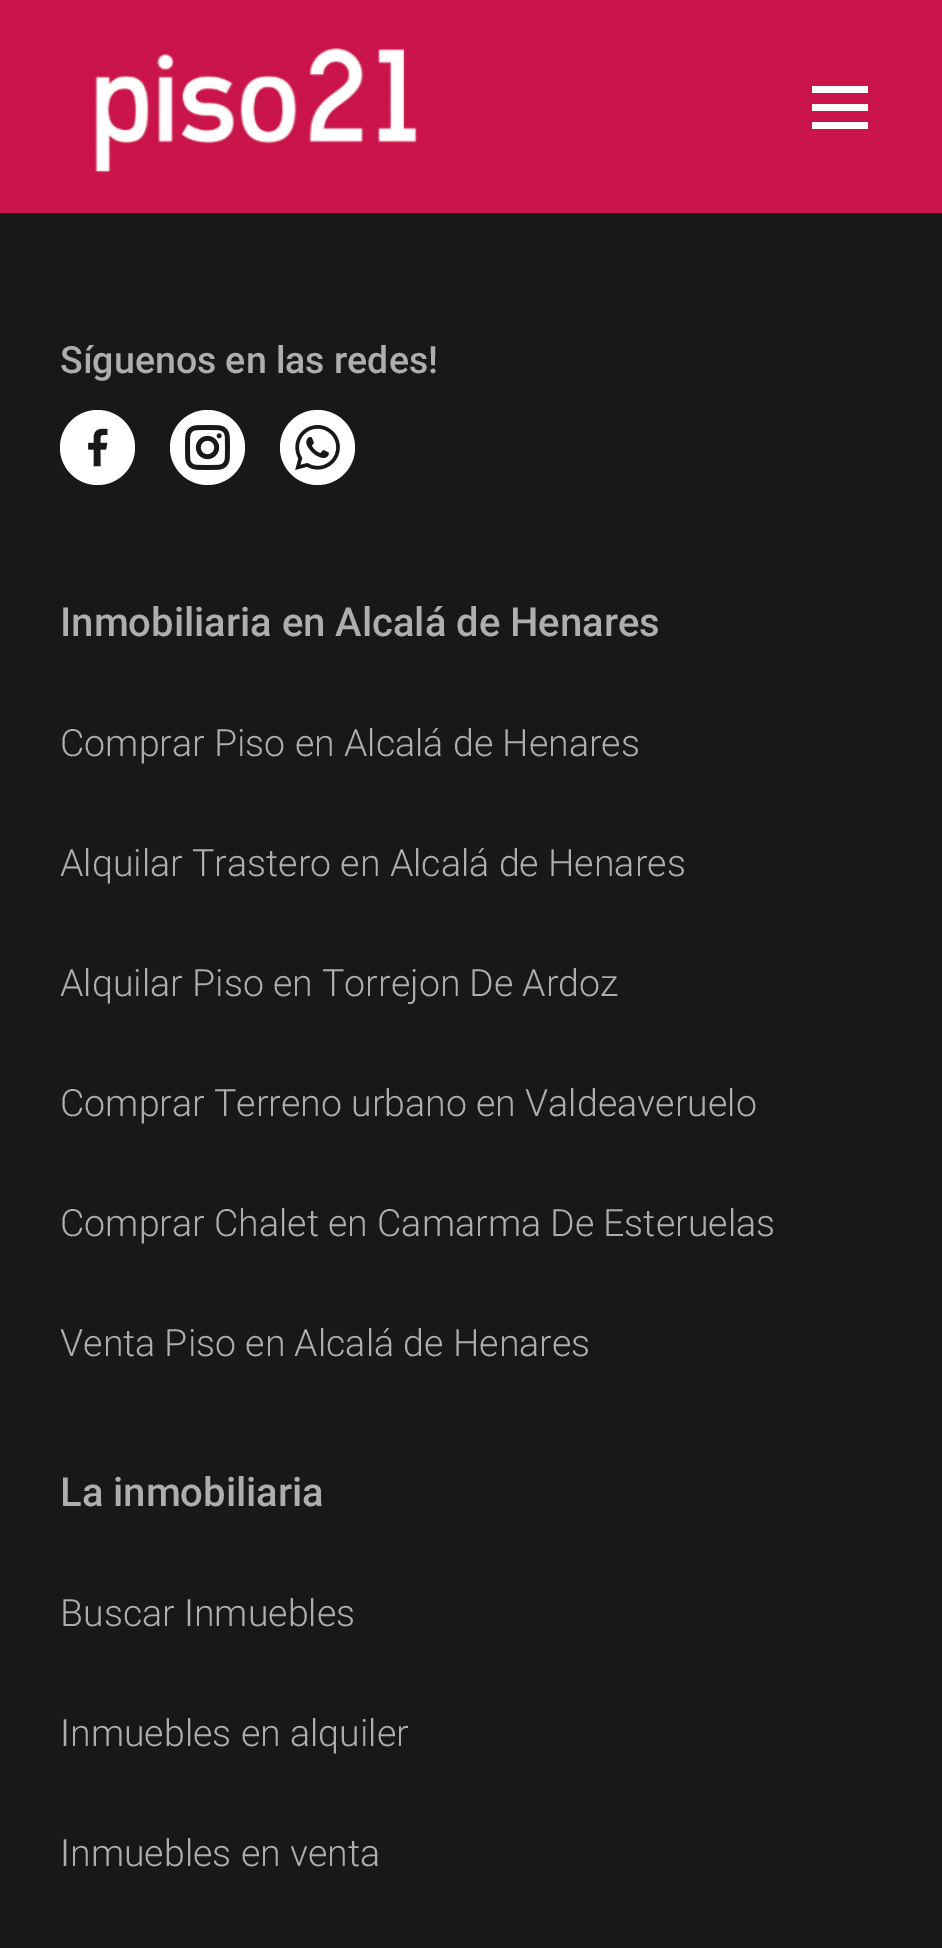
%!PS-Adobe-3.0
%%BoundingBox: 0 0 942 1948
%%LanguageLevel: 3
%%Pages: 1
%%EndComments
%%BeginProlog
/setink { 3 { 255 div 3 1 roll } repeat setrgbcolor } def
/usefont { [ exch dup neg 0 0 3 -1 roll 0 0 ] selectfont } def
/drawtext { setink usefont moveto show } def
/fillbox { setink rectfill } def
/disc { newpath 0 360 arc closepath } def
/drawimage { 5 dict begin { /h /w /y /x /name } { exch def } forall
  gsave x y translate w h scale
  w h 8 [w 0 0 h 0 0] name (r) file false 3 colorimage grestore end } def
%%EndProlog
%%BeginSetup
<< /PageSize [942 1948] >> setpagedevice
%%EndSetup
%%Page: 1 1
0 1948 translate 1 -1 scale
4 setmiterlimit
0 0 942 1948 24 24 24 fillbox
0 0 942 213 203 19 76 fillbox
(assets/img1.rgb) 95 47 322 126 drawimage
255 255 255 setink
812 86 moveto 868 86 lineto 868 93 lineto 812 93 lineto closepath 812 104 moveto 868 104 lineto 868 111 lineto 812 111 lineto closepath 812 122 moveto 868 122 lineto 868 129 lineto 812 129 lineto closepath fill
(Síguenos en las redes!) 60 373 /Roboto-Medium 37.5 174 174 174 drawtext
255 255 255 setink
97.5 447.5 37.5 disc fill
(assets/img2.rgb) 88 428 20 39 drawimage
207.5 447.5 37.5 disc fill
(assets/img3.rgb) 185 425 45 45 drawimage
317.5 447.5 37.5 disc fill
(assets/img4.rgb) 295 425 45 45 drawimage
(Inmobiliaria en Alcalá de Henares) 60 636 /Roboto-Medium 40 174 174 174 drawtext
(Comprar Piso en Alcalá de Henares) 60 756 /Roboto-Light 37.5 174 174 174 drawtext
(Alquilar Trastero en Alcalá de Henares) 60 876 /Roboto-Light 37.5 174 174 174 drawtext
(Alquilar Piso en Torrejon De Ardoz) 60 996 /Roboto-Light 37.5 174 174 174 drawtext
(Comprar Terreno urbano en Valdeaveruelo) 60 1116 /Roboto-Light 37.5 174 174 174 drawtext
(Comprar Chalet en Camarma De Esteruelas) 60 1236 /Roboto-Light 37.5 174 174 174 drawtext
(Venta Piso en Alcalá de Henares) 60 1356 /Roboto-Light 37.5 174 174 174 drawtext
(La inmobiliaria) 60 1506 /Roboto-Medium 40 174 174 174 drawtext
(Buscar Inmuebles) 60 1626 /Roboto-Light 37.5 174 174 174 drawtext
(Inmuebles en alquiler) 60 1746 /Roboto-Light 37.5 174 174 174 drawtext
(Inmuebles en venta) 60 1866 /Roboto-Light 37.5 174 174 174 drawtext
showpage
%%EOF
